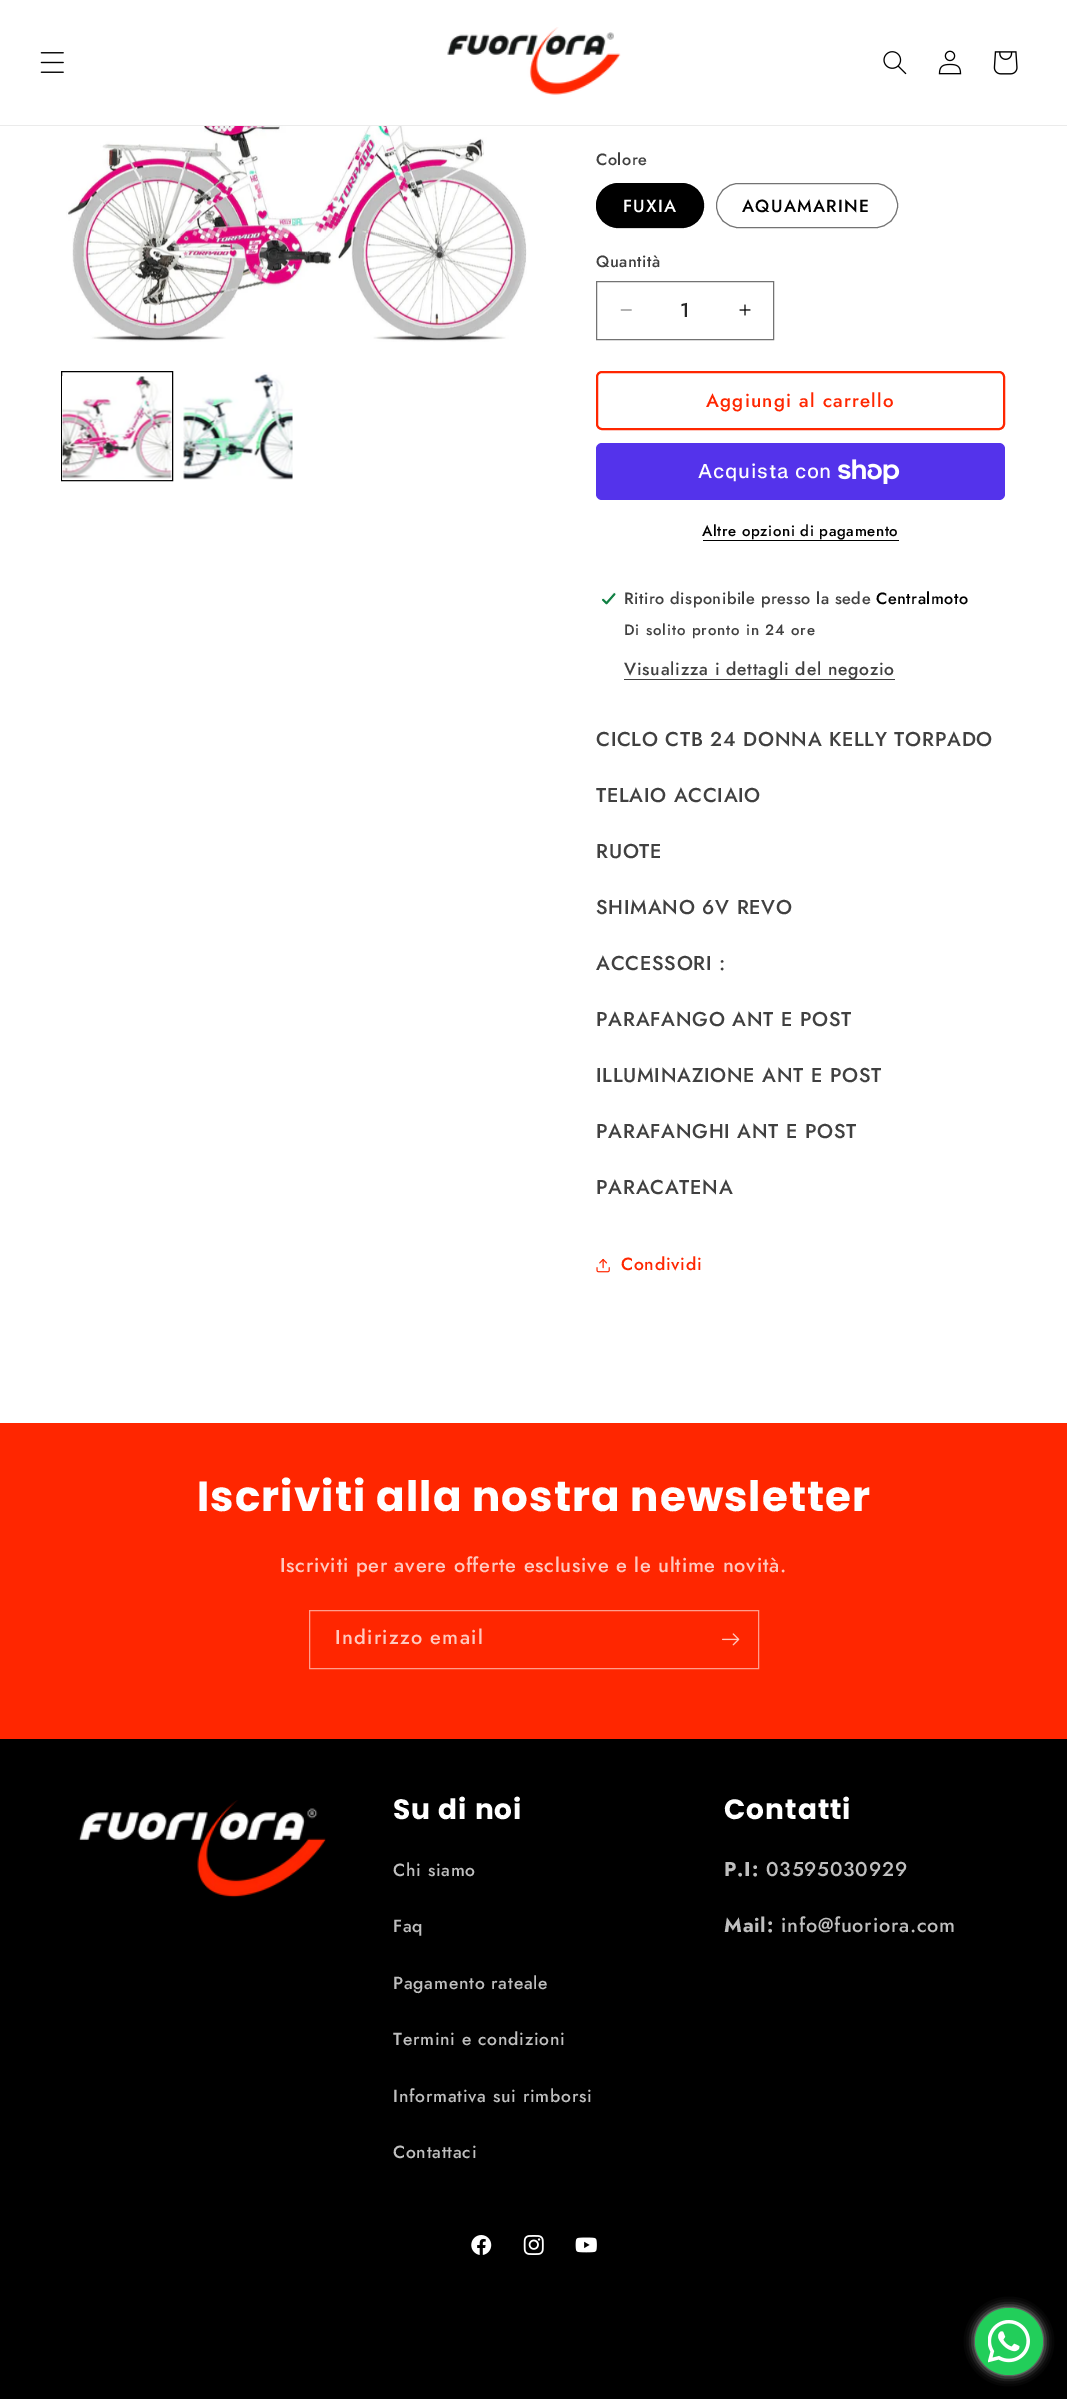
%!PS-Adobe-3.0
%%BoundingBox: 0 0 1067 2399
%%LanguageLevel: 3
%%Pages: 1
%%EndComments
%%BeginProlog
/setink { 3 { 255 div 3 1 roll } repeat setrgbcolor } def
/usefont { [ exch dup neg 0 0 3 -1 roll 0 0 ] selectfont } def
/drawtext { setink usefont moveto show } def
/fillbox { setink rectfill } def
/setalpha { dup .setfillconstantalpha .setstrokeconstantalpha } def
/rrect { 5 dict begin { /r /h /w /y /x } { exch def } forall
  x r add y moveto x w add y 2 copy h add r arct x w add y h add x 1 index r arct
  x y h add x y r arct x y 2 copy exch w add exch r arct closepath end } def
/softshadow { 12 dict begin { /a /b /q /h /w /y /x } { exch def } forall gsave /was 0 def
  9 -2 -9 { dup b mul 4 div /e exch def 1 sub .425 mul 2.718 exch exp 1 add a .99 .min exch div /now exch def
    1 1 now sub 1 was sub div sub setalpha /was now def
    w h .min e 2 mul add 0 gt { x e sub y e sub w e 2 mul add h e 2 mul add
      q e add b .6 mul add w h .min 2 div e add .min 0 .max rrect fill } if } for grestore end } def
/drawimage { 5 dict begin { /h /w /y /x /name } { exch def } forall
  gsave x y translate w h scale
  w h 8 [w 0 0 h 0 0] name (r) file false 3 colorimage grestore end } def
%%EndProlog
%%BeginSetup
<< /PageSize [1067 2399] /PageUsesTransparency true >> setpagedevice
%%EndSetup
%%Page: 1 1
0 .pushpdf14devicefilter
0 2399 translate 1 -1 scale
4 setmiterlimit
0 0 1067 2399 255 255 255 fillbox
0 125 1067 1 235 235 235 fillbox
(assets/img1.rgb) 40 52 24 21 drawimage
(assets/img2.rgb) 447 27 174 68 drawimage
(assets/img3.rgb) 883 51 24 24 drawimage
(assets/img4.rgb) 938 50 24 25 drawimage
(assets/img5.rgb) 993 51 25 24 drawimage
(assets/img6.rgb) 66 126 461 216 drawimage
0 0 0 setink
61.5 371.5 111 109 rectstroke
(assets/img7.rgb) 62 376 110 105 drawimage
(assets/img8.rgb) 183 372 110 108 drawimage
/Jost-Medium 16.25 usefont
64 64 64 setink
596 165 moveto 0.5 0 (Colore) ashow
0 0 0 setink
596 183 108 45 22.5 rrect fill
0.55 setalpha
596.5 183.5 107 44 22 rrect stroke
/Jost-Medium 17.5 usefont
1 setalpha
255 255 255 setink
623 212 moveto 1.25 0 (FUXIA) ashow
115 115 115 setink
716.5 183.5 181 44 22 rrect stroke
0 0 0 setink
742 212 moveto 1.25 0 (AQUAMARINE) ashow
/Jost-Medium 16.25 usefont
64 64 64 setink
596 267 moveto 0.5 0 (Quantità) ashow
(assets/img9.rgb) 620 309 12 2 drawimage
(assets/img10.rgb) 739 304 12 12 drawimage
115 115 115 setink
596.5 281.5 177 58 rectstroke
(1) 680 317 /Jost-Medium 20 38 38 38 drawtext
255 38 0 setink
2 setlinewidth
597 372 407 57 5 rrect stroke
/Jost-Medium 18.75 usefont
706 407 moveto 1.25 0 (Aggiungi al carrello) ashow
84 51 235 setink
596 443 409 57 6 rrect fill
/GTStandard-Medium 20 usefont
255 255 255 setink
698 478 moveto 0.75 0 (Acquista con) ashow
(assets/img11.rgb) 838 459 62 25 drawimage
/Jost-Medium 15 usefont
0 0 0 setink
702 536 moveto 0.6 0 (Altre opzioni di pagamento) ashow
703 540 196 1 0 0 0 fillbox
(assets/img12.rgb) 601 592 15 13 drawimage
/Jost-Medium 16.25 usefont
64 64 64 setink
624 604 moveto 0.5 0 (Ritiro disponibile presso la sede) ashow
0 0 0 setink
876 604 moveto 0.5 0 (Centralmoto) ashow
/Jost-Medium 15 usefont
64 64 64 setink
624 635 moveto 0.9 0 (Di solito pronto in 24 ore) ashow
624 679 271 1 64 64 64 fillbox
/Jost-Medium 17.5 usefont
624 675 moveto 0.75 0 (Visualizza i dettagli del negozio) ashow
/Jost-Medium 20 usefont
596 746 moveto 0.75 0 (CICLO CTB 24 DONNA KELLY TORPADO) ashow
596 802 moveto 0.75 0 (TELAIO ACCIAIO) ashow
596 858 moveto 0.75 0 (RUOTE) ashow
596 914 moveto 0.75 0 (SHIMANO 6V REVO) ashow
596 970 moveto 0.75 0 (ACCESSORI :) ashow
596 1026 moveto 0.75 0 (PARAFANGO ANT E POST) ashow
596 1082 moveto 0.75 0 (ILLUMINAZIONE ANT E POST) ashow
596 1138 moveto 0.75 0 (PARAFANGHI ANT E POST) ashow
596 1194 moveto 0.75 0 (PARACATENA) ashow
(assets/img13.rgb) 596 1258 14 15 drawimage
/Jost-Medium 17.5 usefont
255 38 0 setink
621 1270 moveto 0.75 0 (Condividi) ashow
0 1423 1067 316 255 38 0 fillbox
/Poppins-Bold 42 usefont
255 255 255 setink
197 1511 moveto 1.05 0 (Iscriviti alla nostra newsletter) ashow
/Jost-Medium 20 usefont
255 201 191 setink
280 1572 moveto 0.75 0 (Iscriviti per avere offerte esclusive e le ultime novità.) ashow
255 157 140 setink
1 setlinewidth
309.5 1610.5 449 58 rectstroke
255 201 191 setink
335 1644 moveto 1.25 0 (Indirizzo email) ashow
(assets/img14.rgb) 722 1633 18 13 drawimage
0 1739 1067 660 0 0 0 fillbox
(assets/img15.rgb) 78 1800 248 98 drawimage
/Poppins-Bold 28 usefont
255 255 255 setink
393 1819 moveto 1.05 0 (Su di noi) ashow
/Jost-Medium 17.5 usefont
191 191 191 setink
393 1876 moveto 0.75 0 (Chi siamo) ashow
393 1932 moveto 0.75 0 (Faq) ashow
393 1989 moveto 0.75 0 (Pagamento rateale) ashow
393 2045 moveto 0.75 0 (Termini e condizioni) ashow
393 2102 moveto 0.75 0 (Informativa sui rimborsi) ashow
393 2158 moveto 0.75 0 (Contattaci) ashow
/Poppins-Bold 28 usefont
255 255 255 setink
724 1819 moveto 1.05 0 (Contatti) ashow
/Jost-Bold 20 usefont
191 191 191 setink
724 1876 moveto 0.75 0 (P.I:) ashow
/Jost-Medium 20 usefont
766 1876 moveto 0.75 0 (03595030929) ashow
/Jost-Bold 20 usefont
724 1932 moveto 0.75 0 (Mail:) ashow
/Jost-Medium 20 usefont
781 1932 moveto 0.75 0 (info@fuoriora.com) ashow
(assets/img16.rgb) 471 2235 21 20 drawimage
(assets/img17.rgb) 523 2235 21 20 drawimage
(assets/img18.rgb) 575 2237 22 16 drawimage
194 194 194 setink
975 2308 68 67 33.5 5 1 softshadow
34 206 90 setink
975 2308 68 67 33.5 rrect fill
(assets/img19.rgb) 988 2320 42 43 drawimage
.poppdf14devicefilter showpage
%%EOF
